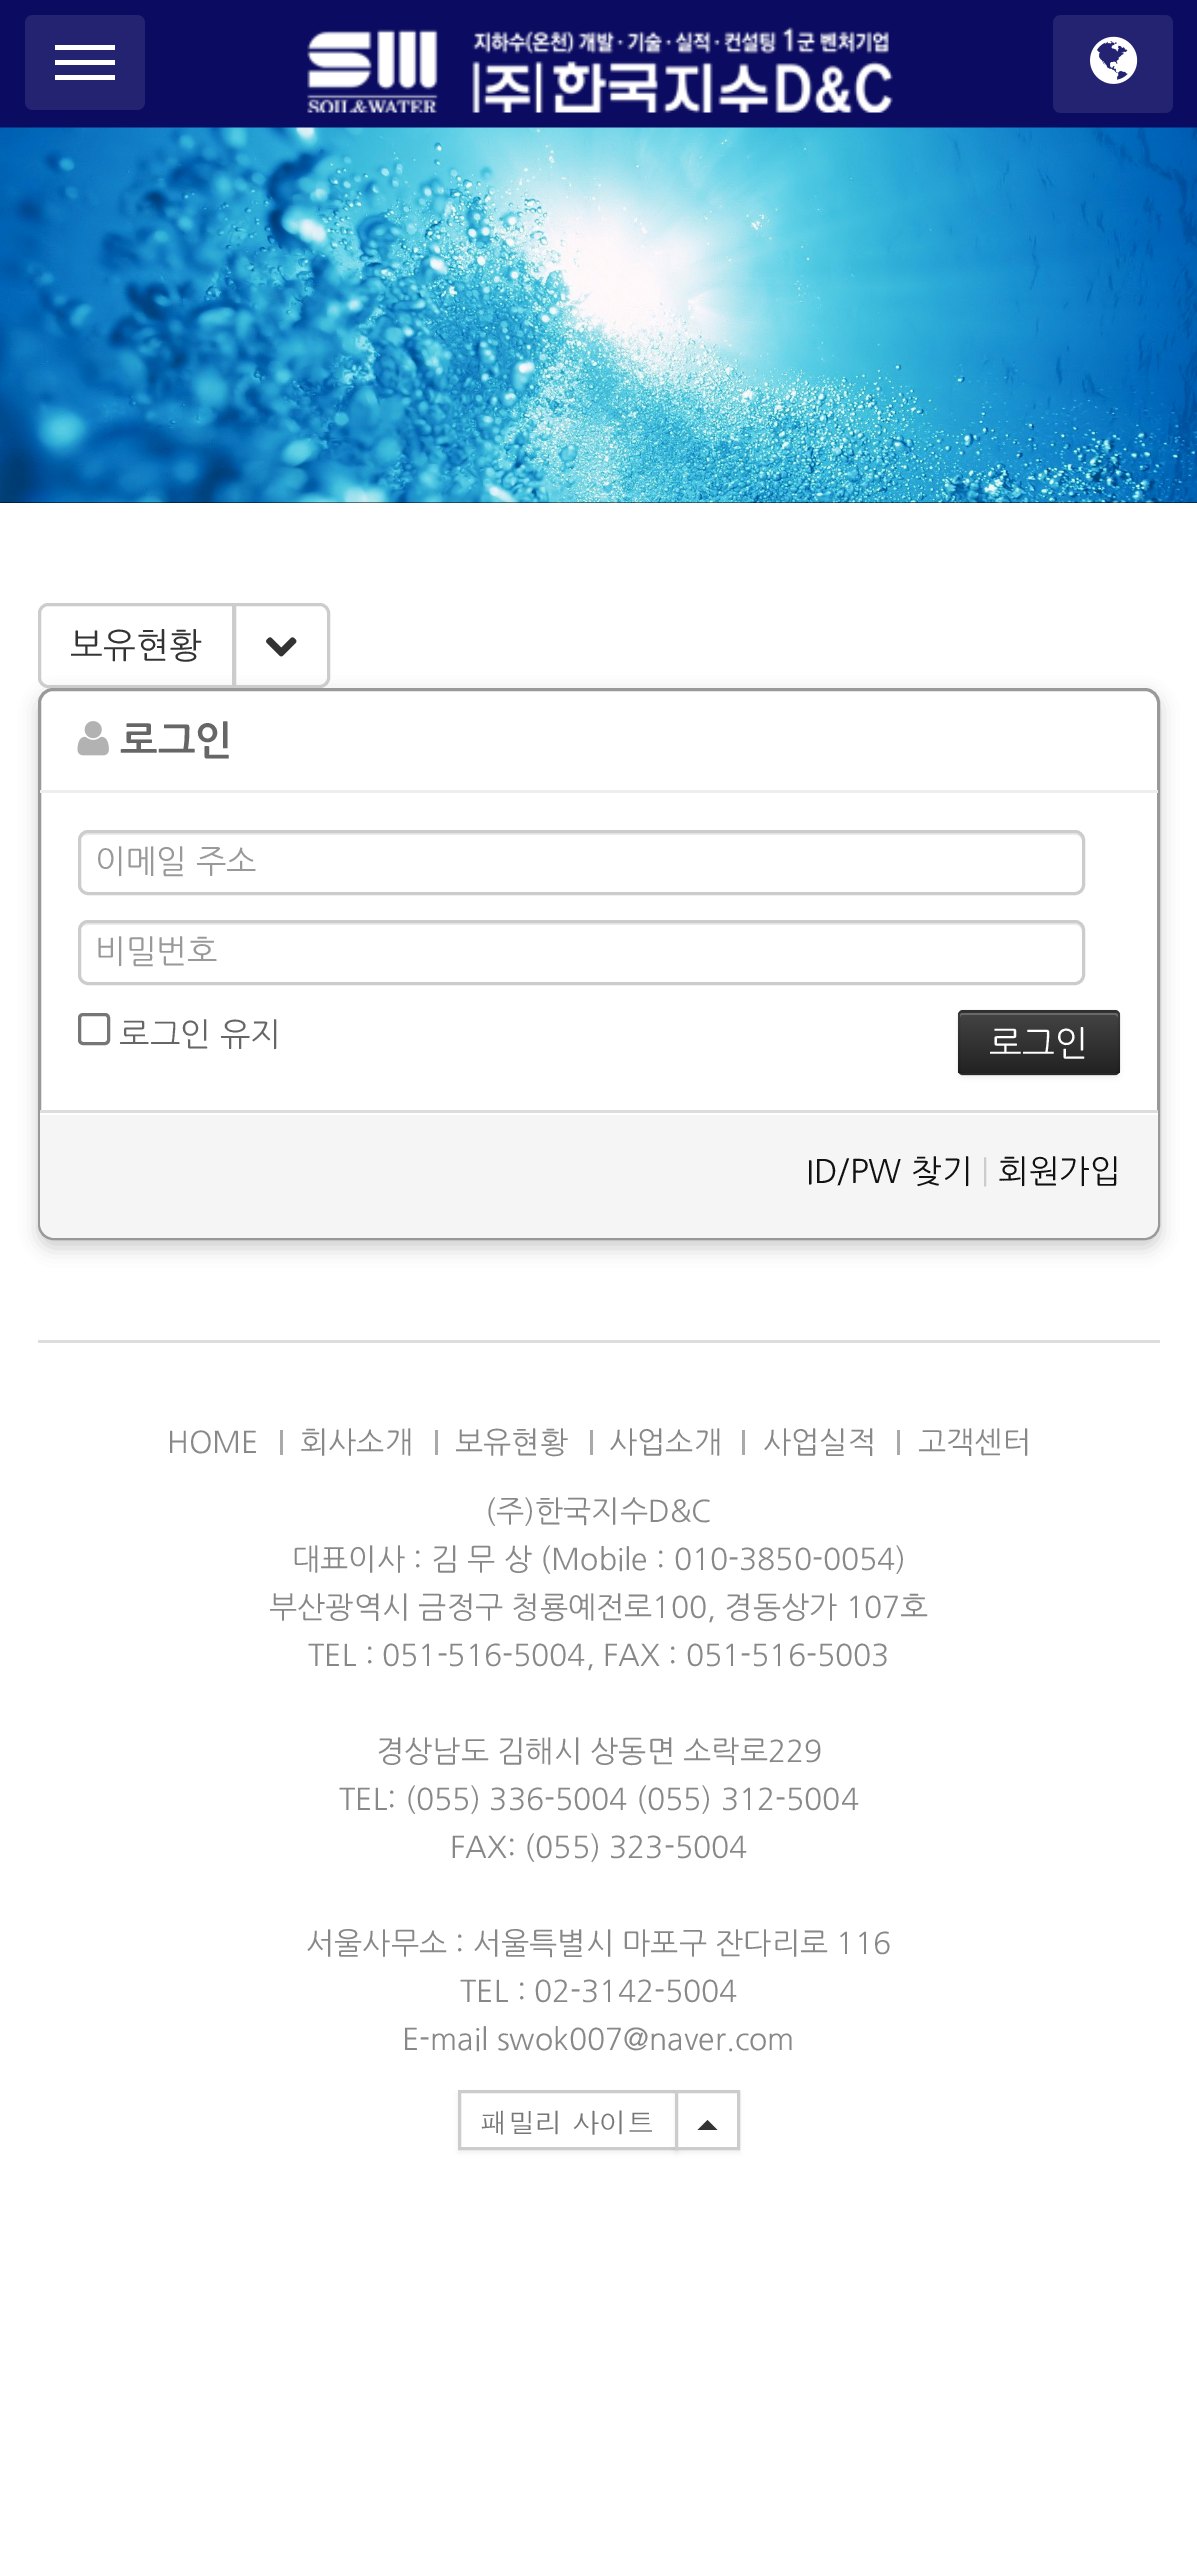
%!PS-Adobe-3.0
%%BoundingBox: 0 0 1197 2576
%%LanguageLevel: 3
%%Pages: 1
%%EndComments
%%BeginProlog
/setink { 3 { 255 div 3 1 roll } repeat setrgbcolor } def
/usefont { [ exch dup neg 0 0 3 -1 roll 0 0 ] selectfont } def
/drawtext { setink usefont moveto show } def
/fillbox { setink rectfill } def
/setalpha { dup .setfillconstantalpha .setstrokeconstantalpha } def
/rrect { 5 dict begin { /r /h /w /y /x } { exch def } forall
  x r add y moveto x w add y 2 copy h add r arct x w add y h add x 1 index r arct
  x y h add x y r arct x y 2 copy exch w add exch r arct closepath end } def
/softshadow { 12 dict begin { /a /b /q /h /w /y /x } { exch def } forall gsave /was 0 def
  9 -2 -9 { dup b mul 4 div /e exch def 1 sub .425 mul 2.718 exch exp 1 add a .99 .min exch div /now exch def
    1 1 now sub 1 was sub div sub setalpha /was now def
    w h .min e 2 mul add 0 gt { x e sub y e sub w e 2 mul add h e 2 mul add
      q e add b .6 mul add w h .min 2 div e add .min 0 .max rrect fill } if } for grestore end } def
/drawimage { 5 dict begin { /h /w /y /x /name } { exch def } forall
  gsave x y translate w h scale
  w h 8 [w 0 0 h 0 0] name (r) file false 3 colorimage grestore end } def
%%EndProlog
%%BeginSetup
<< /PageSize [1197 2576] /PageUsesTransparency true >> setpagedevice
%%EndSetup
%%Page: 1 1
0 .pushpdf14devicefilter
0 2576 translate 1 -1 scale
4 setmiterlimit
0 0 1197 2576 255 255 255 fillbox
0 0 1197 128 11 11 97 fillbox
35 35 113 setink
25 15 120 95 8 rrect fill
55 45 60 5 255 255 255 fillbox
55 60 60 5 255 255 255 fillbox
55 75 60 5 255 255 255 fillbox
(assets/img1.rgb) 307 27 586 86 drawimage
35 35 113 setink
1053 15 120 98 8 rrect fill
(assets/img2.rgb) 1090 36 48 48 drawimage
0 502 1197 1 0 0 0 fillbox
(assets/img3.rgb) 0 127 1197 376 drawimage
204 204 204 setink
3 setlinewidth
48 604.5 moveto 233.5 604.5 lineto 233.5 686.5 lineto 48 686.5 lineto 43.5 686.5 39.5 682.5 39.5 678 curveto 39.5 613 lineto 39.5 608.5 43.5 604.5 48 604.5 curveto closepath stroke
(보유현황) 70 658 /NanumGothic-Regular 35 51 51 51 drawtext
255 255 255 setink
234.5 604.5 moveto 320 604.5 lineto 324.5 604.5 328.5 608.5 328.5 613 curveto 328.5 678 lineto 328.5 682.5 324.5 686.5 320 686.5 curveto 234.5 686.5 lineto closepath gsave fill grestore
204 204 204 setink
stroke
(assets/img4.rgb) 266 637 31 20 drawimage
38 695 1122 553 15 9 1 softshadow
255 255 255 setink
39.5 689.5 1119 549 13.5 rrect gsave fill grestore
153 153 153 setink
stroke
40 790 1118 3 238 238 238 fillbox
(assets/img5.rgb) 77 721 32 35 drawimage
(로그인) 120 753 /NanumGothic-Bold 40 102 102 102 drawtext
236 236 236 setink
88 835 moveto 1075 835 lineto 1079 835 1082 838 1082 842 curveto 1082 889 lineto 1083 888 1083 886 1083 885 curveto 1083 841 lineto 1083 837 1079 833 1075 833 curveto 88 833 lineto 84 833 80 837 80 841 curveto 80 842 lineto 80 838 83 835 88 835 curveto closepath fill
204 204 204 setink
79.5 831.5 1004 62 8.5 rrect stroke
(이메일 주소) 95 873 /NanumGothic-Regular 32.5 153 153 153 drawtext
236 236 236 setink
88 925 moveto 1075 925 lineto 1079 925 1082 928 1082 932 curveto 1082 979 lineto 1083 978 1083 976 1083 975 curveto 1083 931 lineto 1083 927 1079 923 1075 923 curveto 88 923 lineto 84 923 80 927 80 931 curveto 80 932 lineto 80 928 83 925 88 925 curveto closepath fill
204 204 204 setink
79.5 921.5 1004 62 8.5 rrect stroke
(비밀번호) 95 963 /NanumGothic-Regular 32.5 153 153 153 drawtext
118 118 118 setink
79.5 1014.5 29 29 3.5 rrect stroke
(로그인 유지) 119 1046 /NanumGothic-Regular 32.5 102 102 102 drawtext
0 0 0 setink
958 1013 162 65 5 2.5 0.05 softshadow
54 54 54 setink
958 1010 162 65 5 rrect fill
gsave
958 1010 162 65 5 rrect clip newpath
gsave 958 1013 moveto 1120 1013 lineto 1120 1073 lineto 958 1073 lineto closepath clip newpath
<< /ShadingType 2 /ColorSpace /DeviceRGB /Coords [1039 1013 1039 1073] /Extend [true true] /Function << /FunctionType 2 /Domain [0 1] /C0 [0.267 0.267 0.267] /C1 [0.133 0.133 0.133] /N 1 >> >> shfill grestore
grestore
105 105 105 setink
962 1015 moveto 1115 1015 lineto 1116 1015 1118 1016 1118 1018 curveto 1118 1016 lineto 1118 1014 1117 1013 1116 1013 curveto 962 1013 lineto 961 1013 960 1014 960 1016 curveto 960 1018 lineto 960 1016 961 1015 962 1015 curveto closepath fill
0.25 setalpha
0 0 0 setink
2.5 setlinewidth
1117.5 1072.5 moveto 1117 1073.5 1116 1074 1115 1074 curveto 962.5 1074 lineto 961.5 1074 960.5 1073.5 960 1072.5 curveto stroke
0.1 setalpha
960 1072.5 moveto 959 1072 959 1071 959 1070 curveto 959 1015 lineto 959 1014 959 1013 960 1012.5 curveto 960.5 1011.5 961.5 1011 962.5 1011 curveto 1115 1011 lineto 1116 1011 1117 1011.5 1117.5 1012.5 curveto 1118.5 1013 1119 1014 1119 1015 curveto 1119 1070 lineto 1119 1071 1118.5 1072 1117.5 1072.5 curveto stroke
1 setalpha
(로그인) 989 1056 /NanumGothic-Regular 35 255 255 255 drawtext
245 245 245 setink
40 1110 moveto 1158 1110 lineto 1158 1223 lineto 1158 1231.5 1151.5 1238 1143 1238 curveto 55 1238 lineto 46.5 1238 40 1231.5 40 1223 curveto closepath fill
40 1113 1118 2 255 255 255 fillbox
40 1110 1118 3 221 221 221 fillbox
(ID/PW 찾기) 806 1183 /NanumGothic-Regular 32.5 17 17 17 drawtext
(|) 981 1183 /NanumGothic-Regular 32.5 204 204 204 drawtext
(회원가입) 998 1183 /NanumGothic-Regular 32.5 17 17 17 drawtext
38 1340 1122 3 221 221 221 fillbox
(HOME) 167 1453 /NanumGothic-Regular 30 136 136 136 drawtext
280 1430 3 25 169 169 169 fillbox
(회사소개) 300 1453 /NanumGothic-Regular 30 136 136 136 drawtext
435 1430 3 25 169 169 169 fillbox
(보유현황) 455 1453 /NanumGothic-Regular 30 136 136 136 drawtext
590 1430 3 25 169 169 169 fillbox
(사업소개) 609 1453 /NanumGothic-Regular 30 136 136 136 drawtext
742 1430 3 25 169 169 169 fillbox
(사업실적) 763 1453 /NanumGothic-Regular 30 136 136 136 drawtext
897 1430 3 25 169 169 169 fillbox
(고객센터) 918 1453 /NanumGothic-Regular 30 136 136 136 drawtext
(\(주\)한국지수D&C) 485 1522 /NanumGothic-Regular 30 136 136 136 drawtext
(대표이사 : 김 무 상 \(Mobile : 010-3850-0054\)) 292 1570 /NanumGothic-Regular 30 136 136 136 drawtext
(부산광역시 금정구 청룡예전로100, 경동상가 107호) 269 1618 /NanumGothic-Regular 30 136 136 136 drawtext
(TEL : 051-516-5004, FAX : 051-516-5003) 308 1666 /NanumGothic-Regular 30 136 136 136 drawtext
(경상남도 김해시 상동면 소락로229) 376 1762 /NanumGothic-Regular 30 136 136 136 drawtext
(TEL: \(055\) 336-5004 \(055\) 312-5004) 339 1810 /NanumGothic-Regular 30 136 136 136 drawtext
(FAX: \(055\) 323-5004) 450 1858 /NanumGothic-Regular 30 136 136 136 drawtext
(서울사무소 : 서울특별시 마포구 잔다리로 116) 306 1954 /NanumGothic-Regular 30 136 136 136 drawtext
(TEL : 02-3142-5004) 460 2002 /NanumGothic-Regular 30 136 136 136 drawtext
(E-mail swok007@naver.com) 402 2050 /NanumGothic-Regular 30 136 136 136 drawtext
0 0 0 setink
458 2093 220 60 0 2.5 0.05 softshadow
255 255 255 setink
459.5 2091.5 moveto 676.5 2091.5 lineto 676.5 2148.5 lineto 459.5 2148.5 lineto closepath gsave fill grestore
204 204 204 setink
3 setlinewidth
stroke
(패밀리 사이트) 480 2133 /Dotum-Regular 27.5 119 119 119 drawtext
0 0 0 setink
675 2093 65 60 0 2.5 0.05 softshadow
255 255 255 setink
676.5 2091.5 moveto 738.5 2091.5 lineto 738.5 2148.5 lineto 676.5 2148.5 lineto closepath gsave fill grestore
204 204 204 setink
stroke
51 51 51 setink
717.5 2130 moveto 697.5 2130 lineto 707.5 2120 lineto closepath fill
.poppdf14devicefilter showpage
%%EOF
